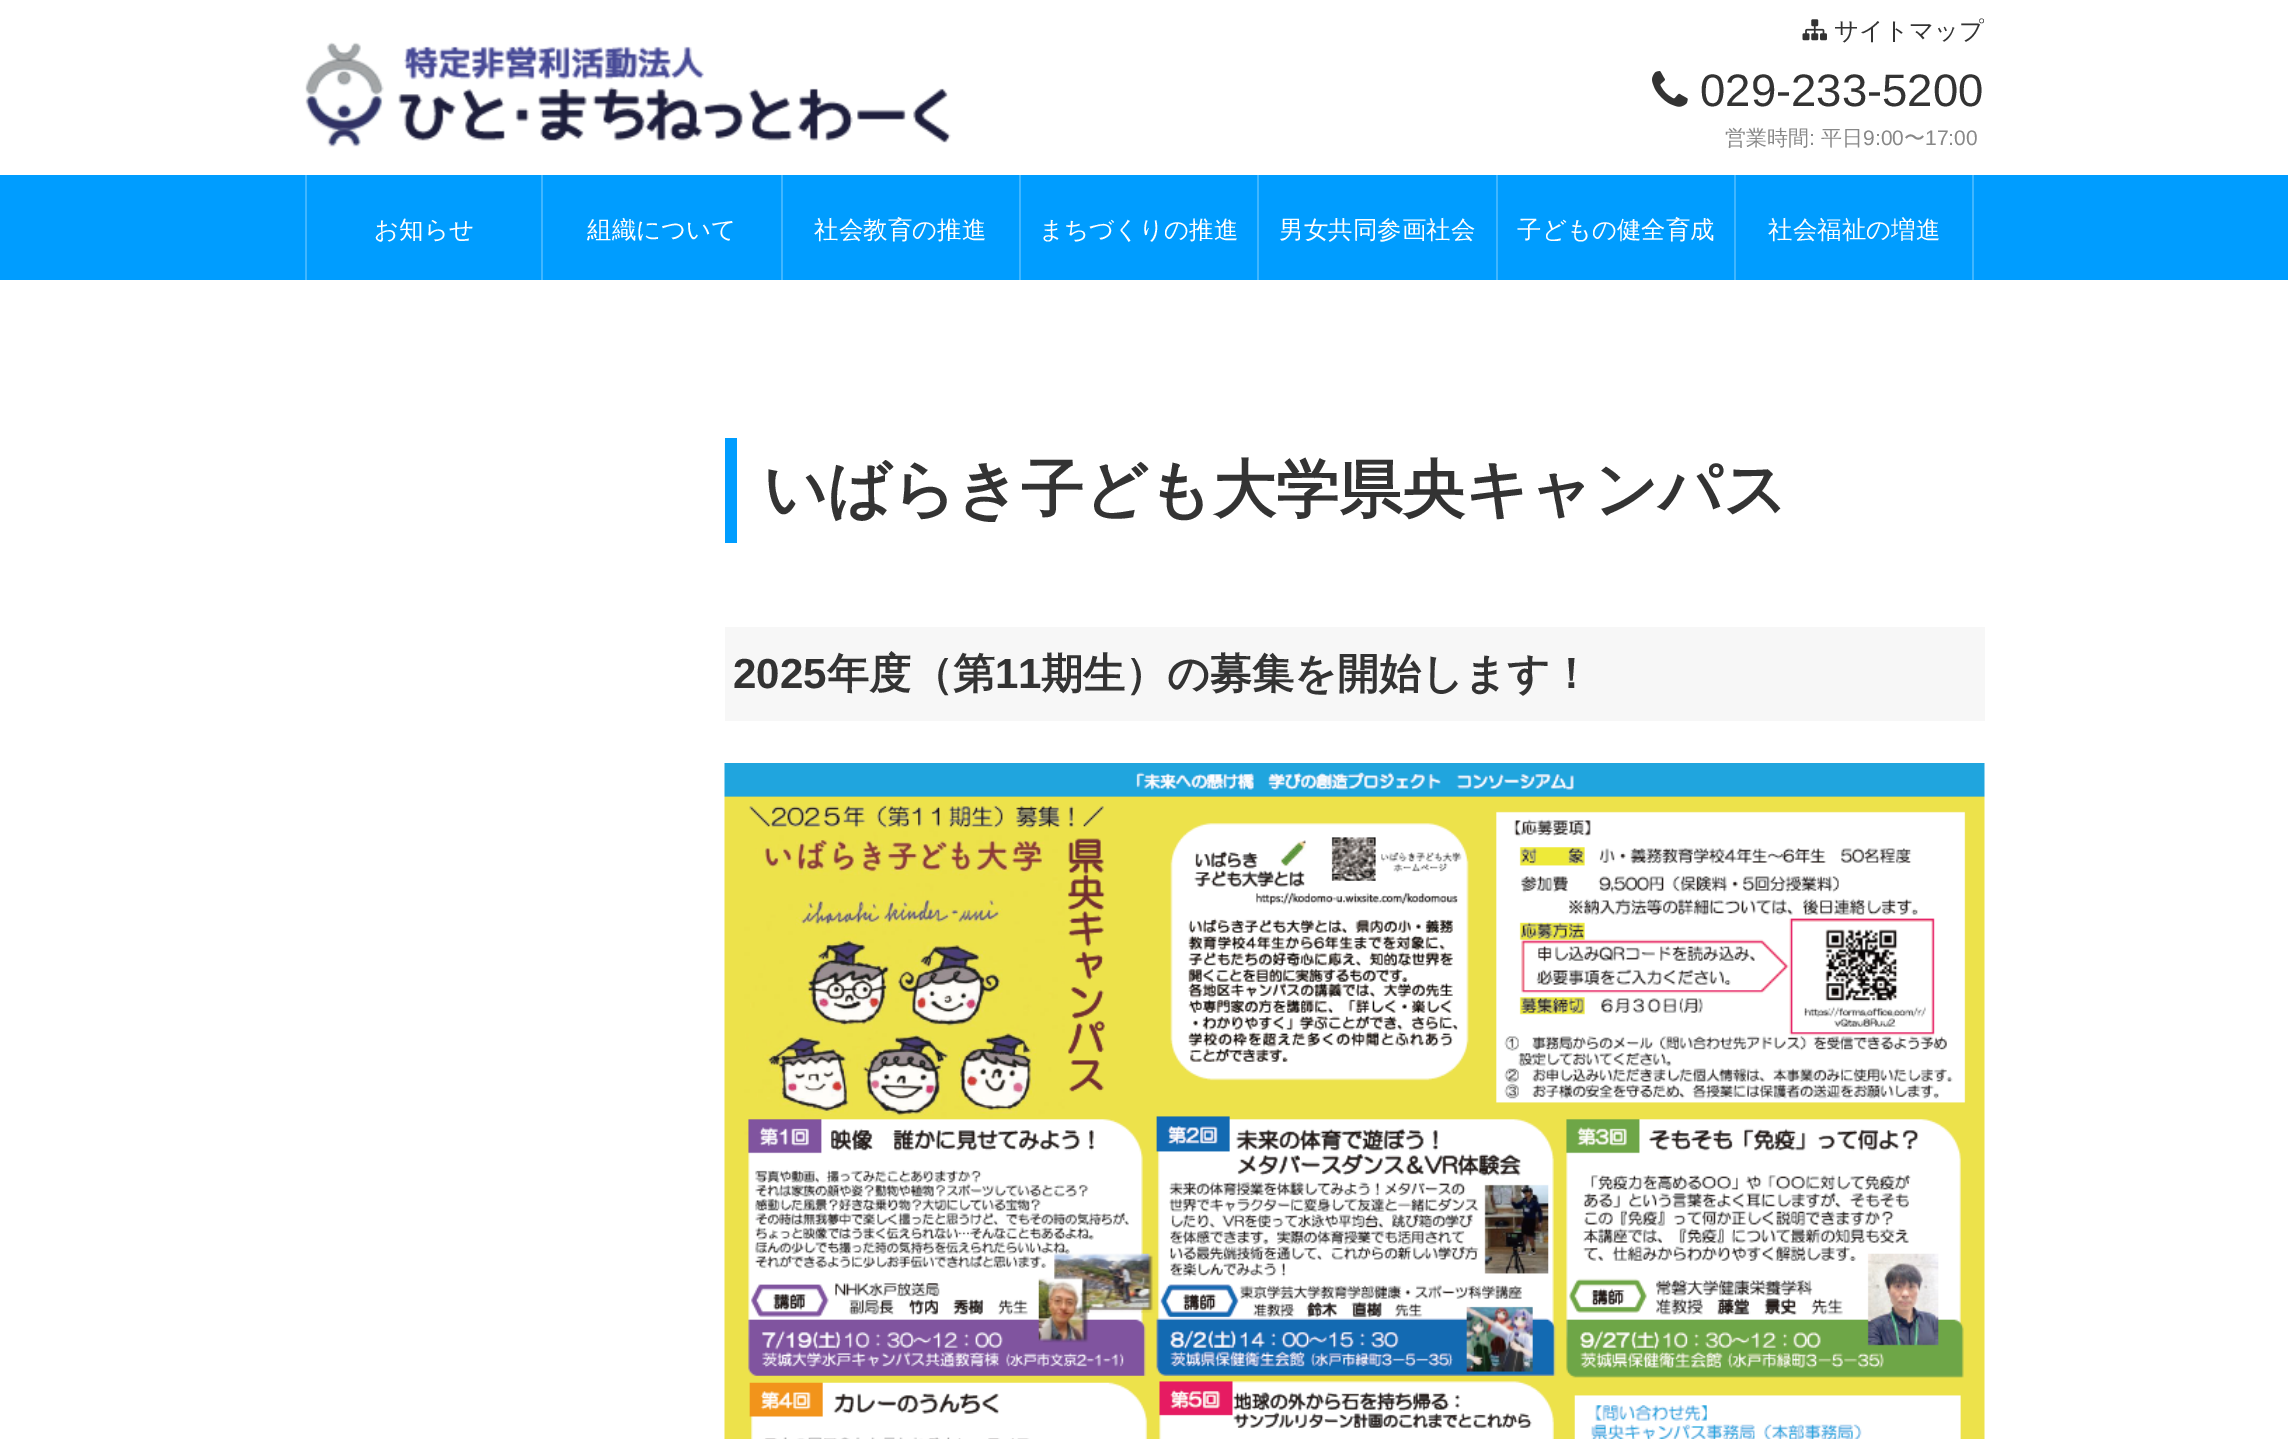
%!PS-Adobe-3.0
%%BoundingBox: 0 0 2288 1439
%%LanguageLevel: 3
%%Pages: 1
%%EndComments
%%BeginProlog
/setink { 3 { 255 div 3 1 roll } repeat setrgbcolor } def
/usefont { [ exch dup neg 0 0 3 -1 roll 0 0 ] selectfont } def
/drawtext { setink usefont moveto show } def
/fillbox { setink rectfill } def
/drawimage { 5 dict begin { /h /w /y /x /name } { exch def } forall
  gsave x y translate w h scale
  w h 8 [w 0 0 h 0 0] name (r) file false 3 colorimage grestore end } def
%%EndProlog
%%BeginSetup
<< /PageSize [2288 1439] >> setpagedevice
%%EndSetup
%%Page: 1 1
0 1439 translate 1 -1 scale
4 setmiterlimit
0 0 2288 1439 255 255 255 fillbox
(assets/img1.rgb) 305 42 646 105 drawimage
(assets/img2.rgb) 1802 19 25 22 drawimage
(サイトマップ) 1834 39 /WenQuanYiZenHei-Medium 24.5 51 51 51 drawtext
(assets/img3.rgb) 1652 71 36 36 drawimage
(029-233-5200) 1700 106 /LiberationSans-Regular 45.5 51 51 51 drawtext
(営業時間) 1725 145 /WenQuanYiZenHei-Medium 21 136 136 136 drawtext
(:) 1809 145 /LiberationSans-Regular 21 136 136 136 drawtext
(平日) 1821 145 /WenQuanYiZenHei-Medium 21 136 136 136 drawtext
(9:00) 1863 145 /LiberationSans-Regular 21 136 136 136 drawtext
(〜) 1904 145 /WenQuanYiZenHei-Medium 21 136 136 136 drawtext
(17:00) 1925 145 /LiberationSans-Regular 21 136 136 136 drawtext
0 175 2288 105 0 157 255 fillbox
541 175 2 105 64 182 255 fillbox
305 175 2 105 64 182 255 fillbox
(お知らせ) 374 238 /WenQuanYiZenHei-Medium 24.5 255 255 255 drawtext
781 175 2 105 64 182 255 fillbox
(組織について) 587 238 /WenQuanYiZenHei-Medium 24.5 255 255 255 drawtext
1019 175 2 105 64 182 255 fillbox
(社会教育の推進) 814 238 /WenQuanYiZenHei-Medium 24.5 255 255 255 drawtext
1257 175 2 105 64 182 255 fillbox
(まちづくりの推進) 1039 238 /WenQuanYiZenHei-Medium 24.5 255 255 255 drawtext
1496 175 2 105 64 182 255 fillbox
(男女共同参画社会) 1279 238 /WenQuanYiZenHei-Medium 24.5 255 255 255 drawtext
1734 175 2 105 64 182 255 fillbox
(子どもの健全育成) 1517 238 /WenQuanYiZenHei-Medium 24.5 255 255 255 drawtext
1972 175 2 105 64 182 255 fillbox
(社会福祉の増進) 1768 238 /WenQuanYiZenHei-Medium 24.5 255 255 255 drawtext
725 438 12 105 0 157 255 fillbox
(いばらき子ども大学県央キャンパス) 763 511 /WenQuanYiZenHei-Bold 63 51 51 51 drawtext
725 627 1260 94 247 247 247 fillbox
(2025) 733 688 /LiberationSans-Bold 42 51 51 51 drawtext
(年度（第) 827 688 /WenQuanYiZenHei-Bold 42 51 51 51 drawtext
(11) 995 688 /LiberationSans-Bold 42 51 51 51 drawtext
(期生）の募集を開始します！) 1041 688 /WenQuanYiZenHei-Bold 42 51 51 51 drawtext
(assets/img4.rgb) 724 763 1261 676 drawimage
showpage
%%EOF
